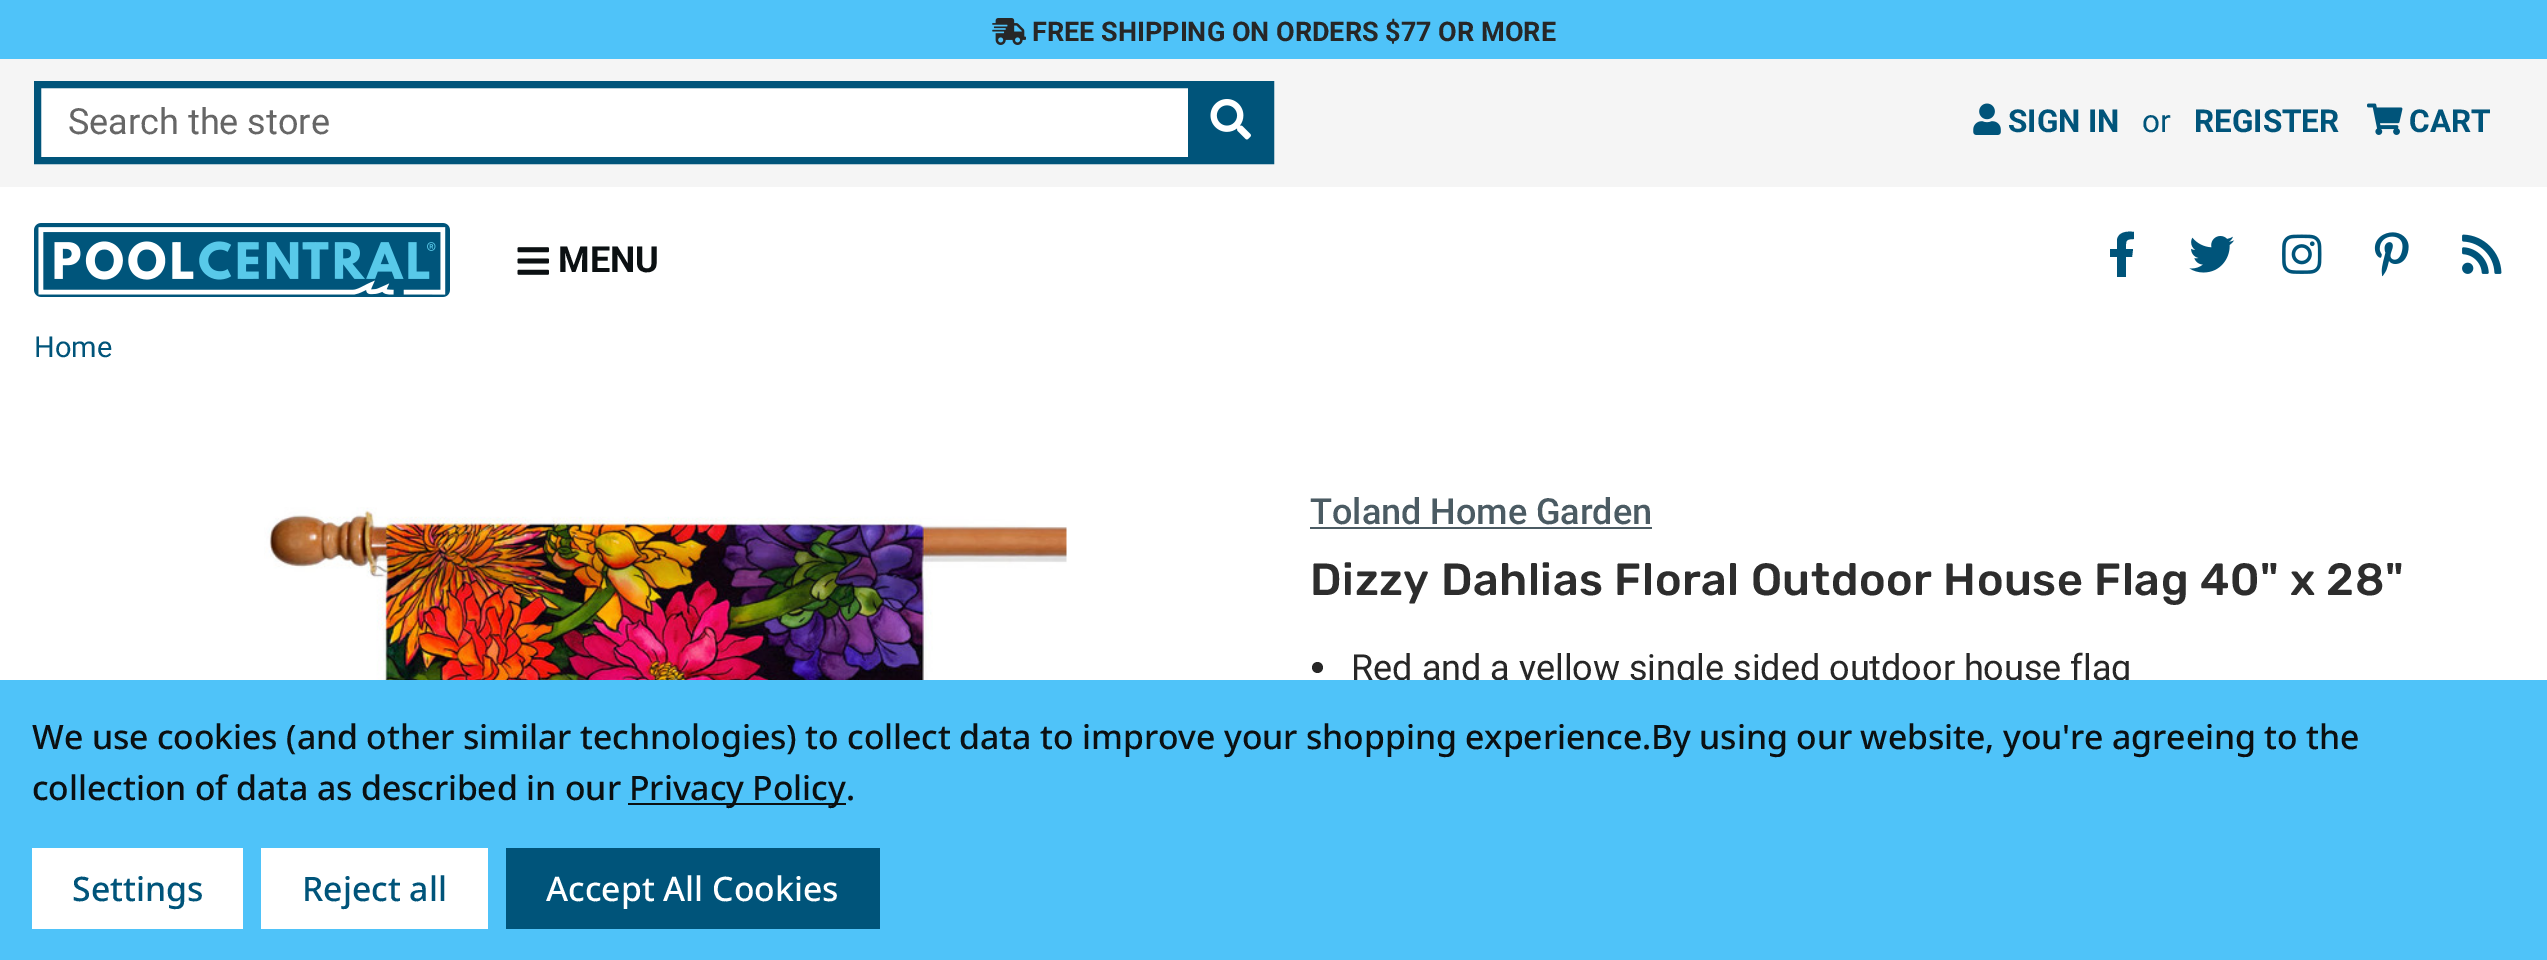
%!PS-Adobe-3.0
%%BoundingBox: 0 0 2547 960
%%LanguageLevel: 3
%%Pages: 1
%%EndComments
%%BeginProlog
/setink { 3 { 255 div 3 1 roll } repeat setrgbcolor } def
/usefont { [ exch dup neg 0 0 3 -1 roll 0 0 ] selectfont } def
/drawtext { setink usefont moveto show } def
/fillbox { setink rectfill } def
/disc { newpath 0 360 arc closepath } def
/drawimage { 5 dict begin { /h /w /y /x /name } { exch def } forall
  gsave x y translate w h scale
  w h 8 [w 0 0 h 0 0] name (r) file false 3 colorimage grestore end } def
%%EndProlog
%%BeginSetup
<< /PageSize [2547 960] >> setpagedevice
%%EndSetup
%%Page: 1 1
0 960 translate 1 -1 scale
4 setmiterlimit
0 0 2547 960 255 255 255 fillbox
0 0 2547 59 79 195 249 fillbox
(assets/img1.rgb) 992 18 34 27 drawimage
(FREE SHIPPING ON ORDERS $77 OR MORE) 1032 41 /Roboto-Bold 27 39 39 39 drawtext
0 59 2547 128 245 245 245 fillbox
41 88 1147 69 255 255 255 fillbox
0 84 122 setink
7 setlinewidth
37.5 84.5 1233 76 rectstroke
(Search the store) 68 134 /Roboto-Regular 36 102 102 102 drawtext
1188 88 79 69 0 84 122 fillbox
(assets/img2.rgb) 1210 99 41 41 drawimage
(assets/img3.rgb) 1973 103 28 32 drawimage
(SIGN IN) 2008 132 /Roboto-Bold 31.5 0 84 122 drawtext
(or) 2142 132 /Roboto-Regular 31.5 0 84 122 drawtext
(REGISTER) 2194 132 /Roboto-Bold 31.5 0 84 122 drawtext
(assets/img4.rgb) 2367 103 36 32 drawimage
(CART) 2409 132 /Roboto-Bold 31.5 0 84 122 drawtext
(assets/img5.rgb) 34 223 416 74 drawimage
(assets/img6.rgb) 517 247 32 28 drawimage
(MENU) 558 272 /Roboto-Bold 36 11 16 18 drawtext
0 84 122 setink
2132 257 moveto 2133 249 lineto 2126 249 lineto 2126 241 2125 239 2134 239 curveto 2134 232 lineto 2127 231 2118 232 2117 240 curveto 2117 249 lineto 2110 249 lineto 2110 257 lineto 2117 257 lineto 2117 277 lineto 2126 277 lineto 2126 257 lineto closepath fill
(assets/img7.rgb) 2189 236 46 37 drawimage
(assets/img8.rgb) 2282 234 40 40 drawimage
(assets/img9.rgb) 2374 232 35 45 drawimage
(assets/img10.rgb) 2462 234 40 40 drawimage
(Home) 34 357 /Roboto-Regular 29 0 84 122 drawtext
(assets/img11.rgb) 264 507 803 173 drawimage
(Toland Home Garden) 1310 524 /Roboto-Medium 36 75 91 99 drawtext
1310 527 342 2 75 91 99 fillbox
/Rubik-Medium 45 usefont
45 45 45 setink
1310 595 moveto 0.55 0 (Dizzy Dahlias Floral Outdoor House Flag 40" x 28") ashow
39 39 39 setink
1317.5 667.5 5.5 disc fill
(Red and a yellow single sided outdoor house flag) 1351 680 /Roboto-Regular 36 39 39 39 drawtext
0 680 2547 280 79 195 249 fillbox
/NotoSans-Medium 33.75 usefont
11 16 18 setink
32 749 moveto -0.11 0 (We use cookies \(and other similar technologies\) to collect data to improve your shopping experience.By using our website, you're agreeing to the) ashow
32 800 moveto -0.11 0 (collection of data as described in our) ashow
628 803 218 2 11 16 18 fillbox
629 800 moveto -0.11 0 (Privacy Policy.) ashow
32 848 211 81 255 255 255 fillbox
(Settings) 72 901 /NotoSans-Medium 33.75 0 84 122 drawtext
261 848 227 81 255 255 255 fillbox
(Reject all) 302 901 /NotoSans-Medium 33.75 0 84 122 drawtext
506 848 374 81 0 84 122 fillbox
(Accept All Cookies) 546 901 /NotoSans-Medium 33.75 255 255 255 drawtext
showpage
%%EOF
